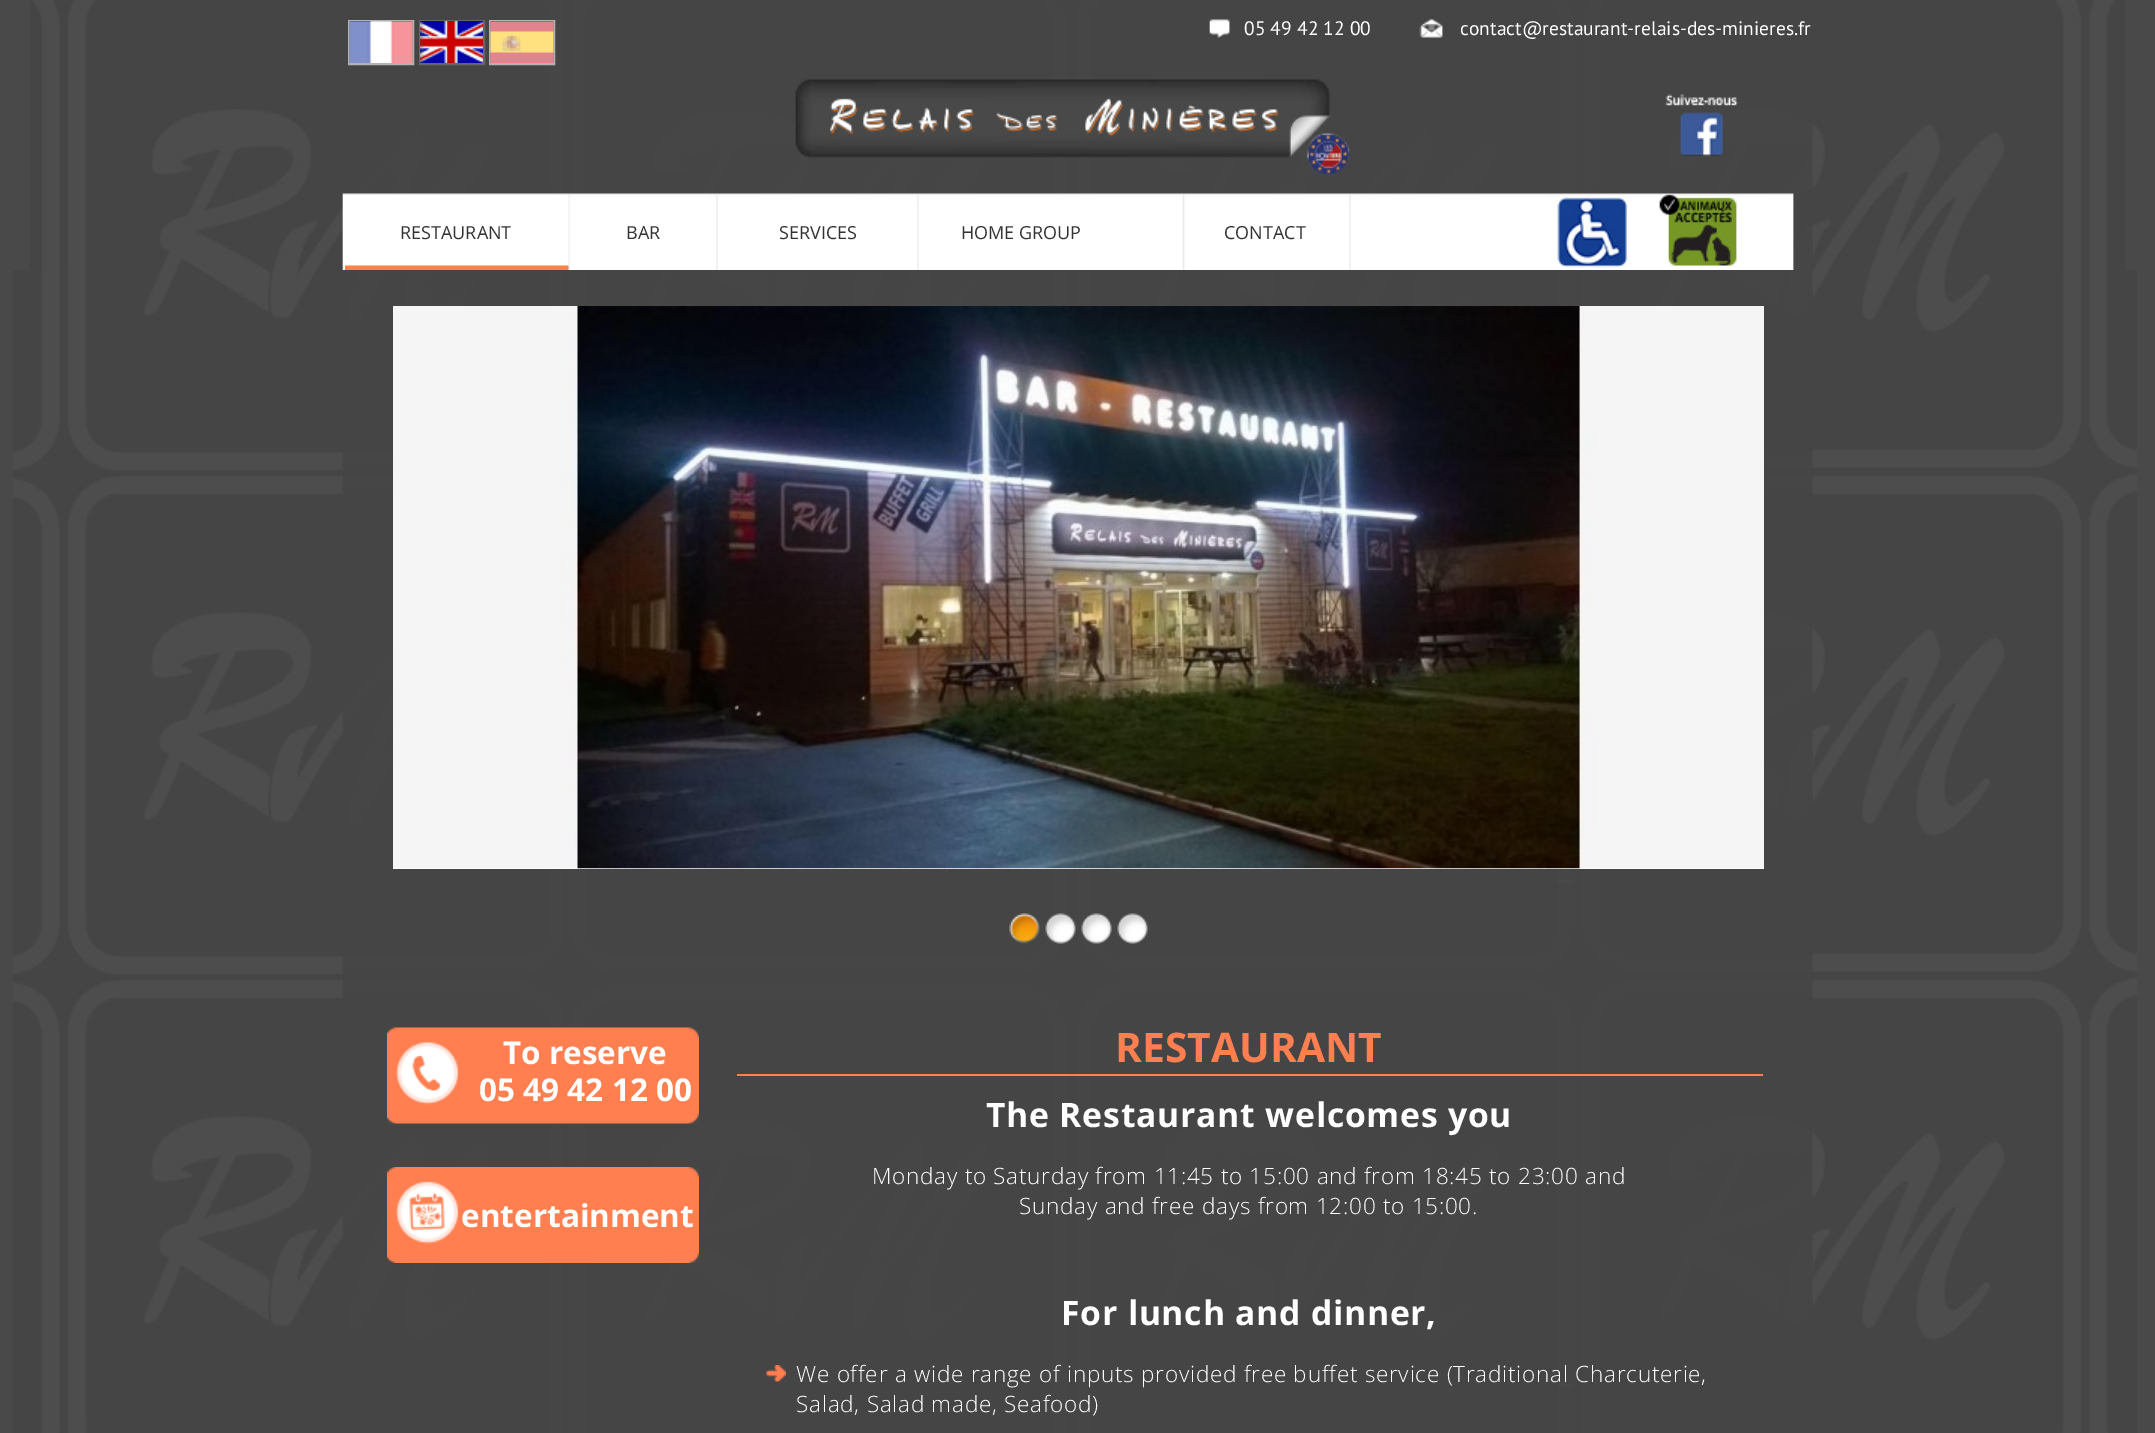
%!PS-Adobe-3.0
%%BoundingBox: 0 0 2155 1433
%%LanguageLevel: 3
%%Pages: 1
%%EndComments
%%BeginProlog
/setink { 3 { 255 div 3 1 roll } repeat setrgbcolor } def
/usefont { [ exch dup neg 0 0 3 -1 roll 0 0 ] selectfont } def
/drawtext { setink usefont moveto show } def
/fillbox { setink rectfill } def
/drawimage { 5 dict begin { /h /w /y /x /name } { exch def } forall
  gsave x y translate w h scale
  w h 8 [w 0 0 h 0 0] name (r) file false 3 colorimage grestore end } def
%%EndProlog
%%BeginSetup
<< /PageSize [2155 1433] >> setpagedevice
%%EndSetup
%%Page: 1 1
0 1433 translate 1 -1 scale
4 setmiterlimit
0 0 2155 1433 255 255 255 fillbox
(assets/img1.rgb) 0 0 2155 1433 drawimage
(assets/img2.rgb) 30 0 2095 270 drawimage
349 21 moveto 413 21 lineto 413 64 lineto 349 64 lineto closepath gsave fill grestore
179 179 179 setink
2 setlinewidth
stroke
(assets/img3.rgb) 349 21 64 42 drawimage
102 102 102 setink
420 21 64 43 rectstroke
(assets/img4.rgb) 420 21 63 42 drawimage
255 255 255 setink
490 21 moveto 554 21 lineto 554 64 lineto 490 64 lineto closepath gsave fill grestore
179 179 179 setink
stroke
(assets/img5.rgb) 490 21 64 42 drawimage
(05 49 42 12 00) 1244 35 /PTSans-Regular 19.5 255 255 255 drawtext
(contact@restaurant-relais-des-minieres.fr) 1460 35 /PTSans-Regular 19.5 255 255 255 drawtext
(assets/img6.rgb) 345 195 224 75 drawimage
(RESTAURANT) 400 239 /OpenSans-Regular 18 51 51 50 drawtext
(BAR) 626 239 /OpenSans-Regular 18 51 51 50 drawtext
(SERVICES) 779 239 /OpenSans-Regular 18 51 51 50 drawtext
(HOME GROUP) 961 239 /OpenSans-Regular 18 51 51 50 drawtext
(CONTACT) 1224 239 /OpenSans-Regular 18 51 51 50 drawtext
(assets/img7.rgb) 13 270 2124 1163 drawimage
393 868 1371 1 255 255 255 fillbox
(assets/img8.rgb) 393 306 1371 563 drawimage
(assets/img9.rgb) 1009 913 31 31 drawimage
(assets/img10.rgb) 1045 913 31 31 drawimage
(assets/img11.rgb) 1081 913 31 31 drawimage
(assets/img12.rgb) 1117 913 31 31 drawimage
(assets/img13.rgb) 387 1027 312 97 drawimage
(To reserve) 503 1064 /OpenSans-Bold 31.5 255 255 255 drawtext
(05 49 42 12 00) 479 1101 /OpenSans-Bold 31.5 255 255 255 drawtext
(assets/img14.rgb) 387 1167 312 96 drawimage
(entertainment) 461 1227 /OpenSans-Bold 31.5 255 255 255 drawtext
737 1074 1026 2 255 127 80 fillbox
(RESTAURANT) 1115 1062 /OpenSans-Bold 40.75 255 127 80 drawtext
/OpenSans-Bold 33.75 usefont
255 255 255 setink
986 1127 moveto 0.75 0 (The Restaurant welcomes you) ashow
/OpenSans-Light 22.5 usefont
872 1184 moveto 0.75 0 (Monday to Saturday from 11:45 to 15:00 and from 18:45 to 23:00 and) ashow
1019 1214 moveto 0.75 0 (Sunday and free days from 12:00 to 15:00.) ashow
/OpenSans-Bold 33.75 usefont
1061 1325 moveto 0.75 0 (For lunch and dinner,) ashow
(assets/img15.rgb) 766 1365 20 17 drawimage
/OpenSans-Light 22.5 usefont
796 1382 moveto 0.75 0 (We offer a wide range of inputs provided free buffet service \(Traditional Charcuterie,) ashow
796 1412 moveto 0.75 0 (Salad, Salad made, Seafood\)) ashow
showpage
%%EOF
